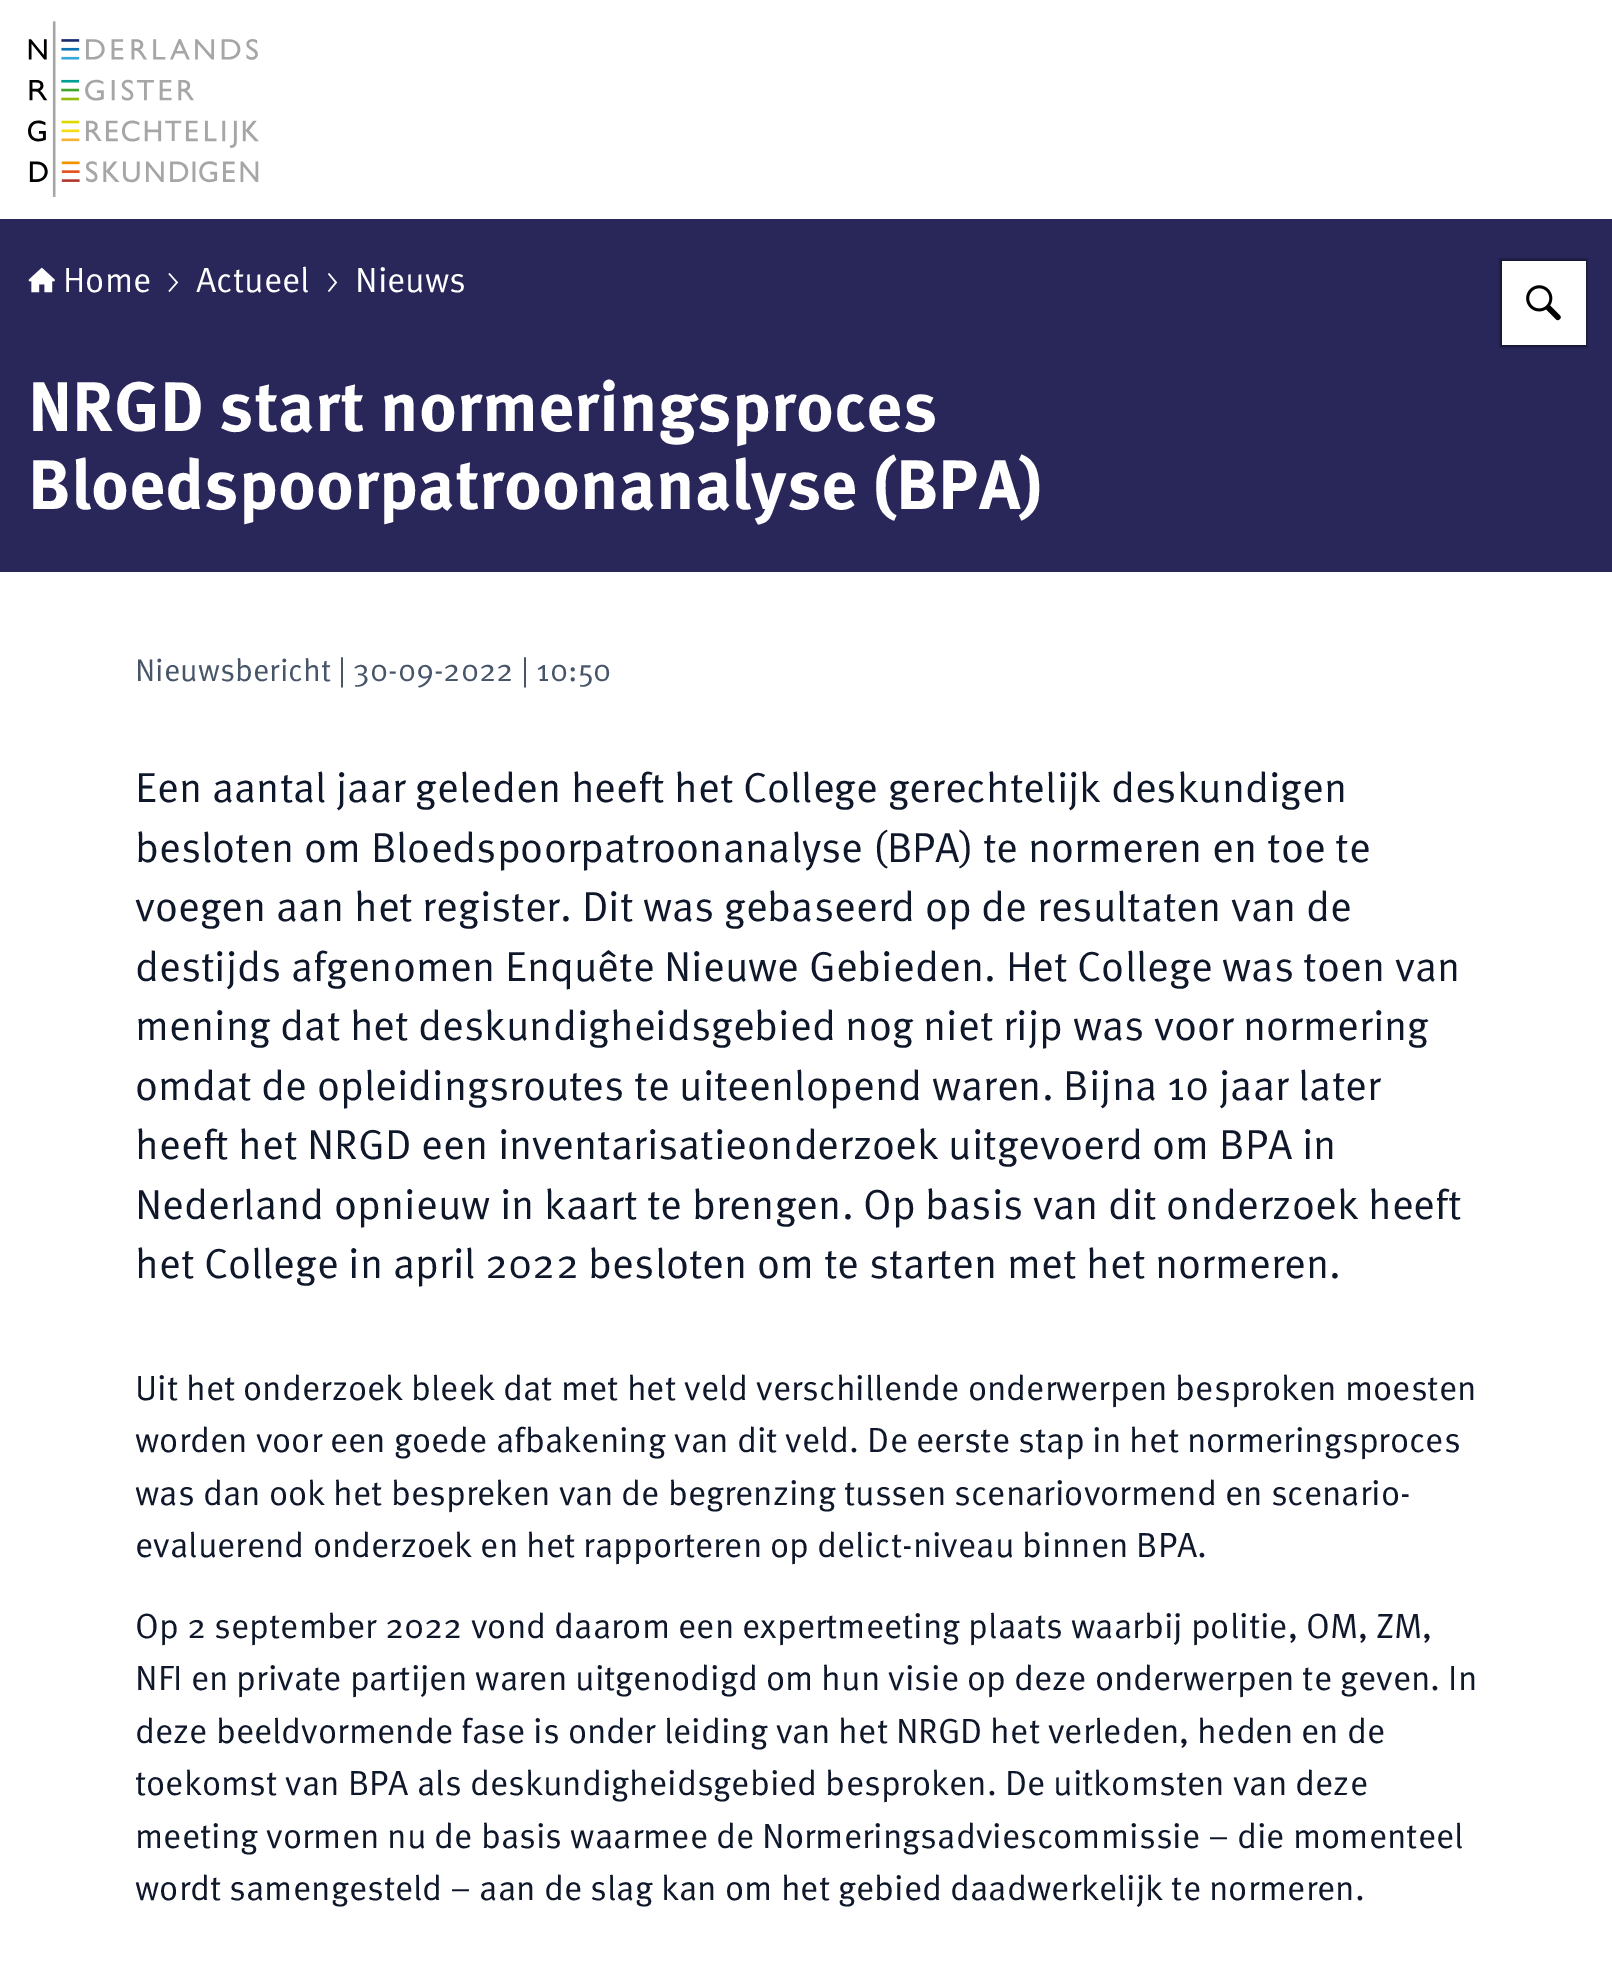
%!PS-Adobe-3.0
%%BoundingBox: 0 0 1612 1969
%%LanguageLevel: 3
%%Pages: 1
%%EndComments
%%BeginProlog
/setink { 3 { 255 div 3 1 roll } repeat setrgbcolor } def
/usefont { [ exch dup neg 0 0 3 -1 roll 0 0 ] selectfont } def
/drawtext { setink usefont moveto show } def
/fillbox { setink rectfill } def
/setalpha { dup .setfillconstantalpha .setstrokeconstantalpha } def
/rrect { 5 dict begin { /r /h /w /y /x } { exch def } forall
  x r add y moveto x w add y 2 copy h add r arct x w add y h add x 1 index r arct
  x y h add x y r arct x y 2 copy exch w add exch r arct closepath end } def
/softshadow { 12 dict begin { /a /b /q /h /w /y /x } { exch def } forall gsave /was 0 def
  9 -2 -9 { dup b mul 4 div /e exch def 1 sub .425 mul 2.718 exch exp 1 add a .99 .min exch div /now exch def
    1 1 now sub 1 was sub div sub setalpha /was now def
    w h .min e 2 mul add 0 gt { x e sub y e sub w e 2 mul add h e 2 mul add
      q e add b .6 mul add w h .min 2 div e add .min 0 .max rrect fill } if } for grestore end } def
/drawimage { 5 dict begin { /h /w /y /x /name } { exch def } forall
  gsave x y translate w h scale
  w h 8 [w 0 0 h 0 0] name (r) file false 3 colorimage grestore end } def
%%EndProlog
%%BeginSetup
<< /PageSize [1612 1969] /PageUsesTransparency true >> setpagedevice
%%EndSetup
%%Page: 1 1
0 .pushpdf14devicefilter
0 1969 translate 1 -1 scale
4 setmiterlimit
0 0 1612 1969 255 255 255 fillbox
(assets/img1.rgb) 28 21 231 176 drawimage
0 219 1612 353 41 38 89 fillbox
(assets/img2.rgb) 28 267 27 26 drawimage
(Home) 63 292 /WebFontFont-Regular 35 255 255 255 drawtext
169.5 292 moveto 168.5 291 lineto 176 282.5 lineto 168.5 274 lineto 169.5 273 lineto 178 282.5 lineto closepath fill
(Actueel) 196 292 /WebFontFont-Regular 35 255 255 255 drawtext
329 292 moveto 328 291 lineto 335 282.5 lineto 328 274 lineto 329 273 lineto 337 282.5 lineto closepath fill
(Nieuws) 355 292 /WebFontFont-Regular 35 255 255 255 drawtext
0 0 0 setink
1500 259 87 88 0 1 0.44 softshadow
1502 261 84 84 255 255 255 fillbox
(assets/img3.rgb) 1526 285 35 36 drawimage
(NRGD start normeringsproces) 28 431 /WebFontFont-Bold 70 255 255 255 drawtext
(Bloedspoorpatroonanalyse \(BPA\)) 28 509 /WebFontFont-Bold 70 255 255 255 drawtext
(Nieuwsbericht | 30-09-2022 | 10:50) 135 681 /WebFontFont-Regular 31.5 71 85 105 drawtext
(Een aantal jaar geleden heeft het College gerechtelijk deskundigen) 135 802 /WebFontFont-Regular 42 15 23 42 drawtext
(besloten om Bloedspoorpatroonanalyse \(BPA\) te normeren en toe te) 135 862 /WebFontFont-Regular 42 15 23 42 drawtext
(voegen aan het register. Dit was gebaseerd op de resultaten van de) 135 921 /WebFontFont-Regular 42 15 23 42 drawtext
(destijds afgenomen Enquête Nieuwe Gebieden. Het College was toen van) 135 981 /WebFontFont-Regular 42 15 23 42 drawtext
(mening dat het deskundigheidsgebied nog niet rijp was voor normering) 135 1040 /WebFontFont-Regular 42 15 23 42 drawtext
(omdat de opleidingsroutes te uiteenlopend waren. Bijna 10 jaar later) 135 1100 /WebFontFont-Regular 42 15 23 42 drawtext
(heeft het NRGD een inventarisatieonderzoek uitgevoerd om BPA in) 135 1159 /WebFontFont-Regular 42 15 23 42 drawtext
(Nederland opnieuw in kaart te brengen. Op basis van dit onderzoek heeft) 135 1219 /WebFontFont-Regular 42 15 23 42 drawtext
(het College in april 2022 besloten om te starten met het normeren.) 135 1278 /WebFontFont-Regular 42 15 23 42 drawtext
(Uit het onderzoek bleek dat met het veld verschillende onderwerpen besproken moesten) 135 1400 /WebFontFont-Regular 35 15 23 42 drawtext
(worden voor een goede afbakening van dit veld. De eerste stap in het normeringsproces) 135 1452 /WebFontFont-Regular 35 15 23 42 drawtext
(was dan ook het bespreken van de begrenzing tussen scenariovormend en scenario-) 135 1505 /WebFontFont-Regular 35 15 23 42 drawtext
(evaluerend onderzoek en het rapporteren op delict-niveau binnen BPA.) 135 1557 /WebFontFont-Regular 35 15 23 42 drawtext
(Op 2 september 2022 vond daarom een expertmeeting plaats waarbij politie, OM, ZM,) 135 1638 /WebFontFont-Regular 35 15 23 42 drawtext
(NFI en private partijen waren uitgenodigd om hun visie op deze onderwerpen te geven. In) 135 1690 /WebFontFont-Regular 35 15 23 42 drawtext
(deze beeldvormende fase is onder leiding van het NRGD het verleden, heden en de) 135 1743 /WebFontFont-Regular 35 15 23 42 drawtext
(toekomst van BPA als deskundigheidsgebied besproken. De uitkomsten van deze) 135 1795 /WebFontFont-Regular 35 15 23 42 drawtext
(meeting vormen nu de basis waarmee de Normeringsadviescommissie – die momenteel) 135 1848 /WebFontFont-Regular 35 15 23 42 drawtext
(wordt samengesteld – aan de slag kan om het gebied daadwerkelijk te normeren.) 135 1900 /WebFontFont-Regular 35 15 23 42 drawtext
.poppdf14devicefilter showpage
%%EOF
